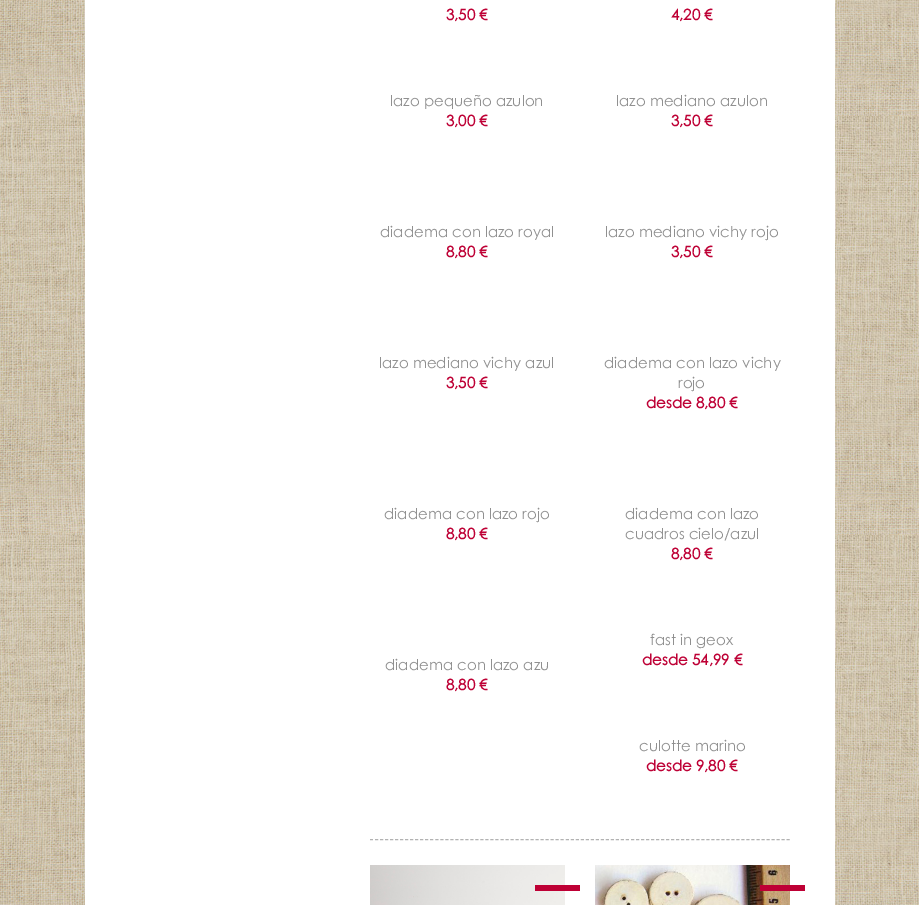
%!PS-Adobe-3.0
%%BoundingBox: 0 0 919 905
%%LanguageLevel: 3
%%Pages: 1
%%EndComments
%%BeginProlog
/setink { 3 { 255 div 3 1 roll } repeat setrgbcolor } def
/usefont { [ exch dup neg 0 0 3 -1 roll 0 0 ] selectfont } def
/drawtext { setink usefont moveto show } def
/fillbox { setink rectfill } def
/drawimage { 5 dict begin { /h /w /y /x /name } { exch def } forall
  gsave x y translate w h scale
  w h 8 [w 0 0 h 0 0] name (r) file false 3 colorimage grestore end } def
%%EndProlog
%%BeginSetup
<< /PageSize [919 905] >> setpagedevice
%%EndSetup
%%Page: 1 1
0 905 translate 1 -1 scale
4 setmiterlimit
0 0 919 905 255 255 255 fillbox
(assets/img1.rgb) 0 0 919 905 drawimage
85 0 750 905 255 255 255 fillbox
(3,50 €) 446 20 /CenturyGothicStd-Bold 15 190 0 53 drawtext
(4,20 €) 671 20 /CenturyGothicStd-Bold 15 190 0 53 drawtext
(lazo pequeño azulon) 390 106 /CenturyGothicStd-Regular 15 144 144 144 drawtext
(3,00 €) 446 126 /CenturyGothicStd-Bold 15 190 0 53 drawtext
(lazo mediano azulon) 616 106 /CenturyGothicStd-Regular 15 144 144 144 drawtext
(3,50 €) 671 126 /CenturyGothicStd-Bold 15 190 0 53 drawtext
(diadema con lazo royal) 380 237 /CenturyGothicStd-Regular 15 144 144 144 drawtext
(8,80 €) 446 257 /CenturyGothicStd-Bold 15 190 0 53 drawtext
(lazo mediano vichy rojo) 605 237 /CenturyGothicStd-Regular 15 144 144 144 drawtext
(3,50 €) 671 257 /CenturyGothicStd-Bold 15 190 0 53 drawtext
(lazo mediano vichy azul) 379 368 /CenturyGothicStd-Regular 15 144 144 144 drawtext
(3,50 €) 446 388 /CenturyGothicStd-Bold 15 190 0 53 drawtext
(diadema con lazo vichy) 604 368 /CenturyGothicStd-Regular 15 144 144 144 drawtext
(rojo) 678 388 /CenturyGothicStd-Regular 15 144 144 144 drawtext
(desde 8,80 €) 646 408 /CenturyGothicStd-Bold 15 190 0 53 drawtext
(diadema con lazo rojo) 384 519 /CenturyGothicStd-Regular 15 144 144 144 drawtext
(8,80 €) 446 539 /CenturyGothicStd-Bold 15 190 0 53 drawtext
(diadema con lazo) 625 519 /CenturyGothicStd-Regular 15 144 144 144 drawtext
(cuadros cielo/azul) 625 539 /CenturyGothicStd-Regular 15 144 144 144 drawtext
(8,80 €) 671 559 /CenturyGothicStd-Bold 15 190 0 53 drawtext
(fast in geox) 650 645 /CenturyGothicStd-Regular 15 144 144 144 drawtext
(desde 54,99 €) 642 665 /CenturyGothicStd-Bold 15 190 0 53 drawtext
(diadema con lazo azu) 385 670 /CenturyGothicStd-Regular 15 144 144 144 drawtext
(8,80 €) 446 690 /CenturyGothicStd-Bold 15 190 0 53 drawtext
(culotte marino) 639 751 /CenturyGothicStd-Regular 15 144 144 144 drawtext
(desde 9,80 €) 646 771 /CenturyGothicStd-Bold 15 190 0 53 drawtext
178 178 178 setink
[3 2.02] 0 setdash
370 839.5 moveto 790 839.5 lineto stroke
(assets/img2.rgb) 370 865 195 40 drawimage
535 885 45 6 190 0 53 fillbox
(assets/img3.rgb) 595 865 195 40 drawimage
760 885 45 6 190 0 53 fillbox
showpage
%%EOF
